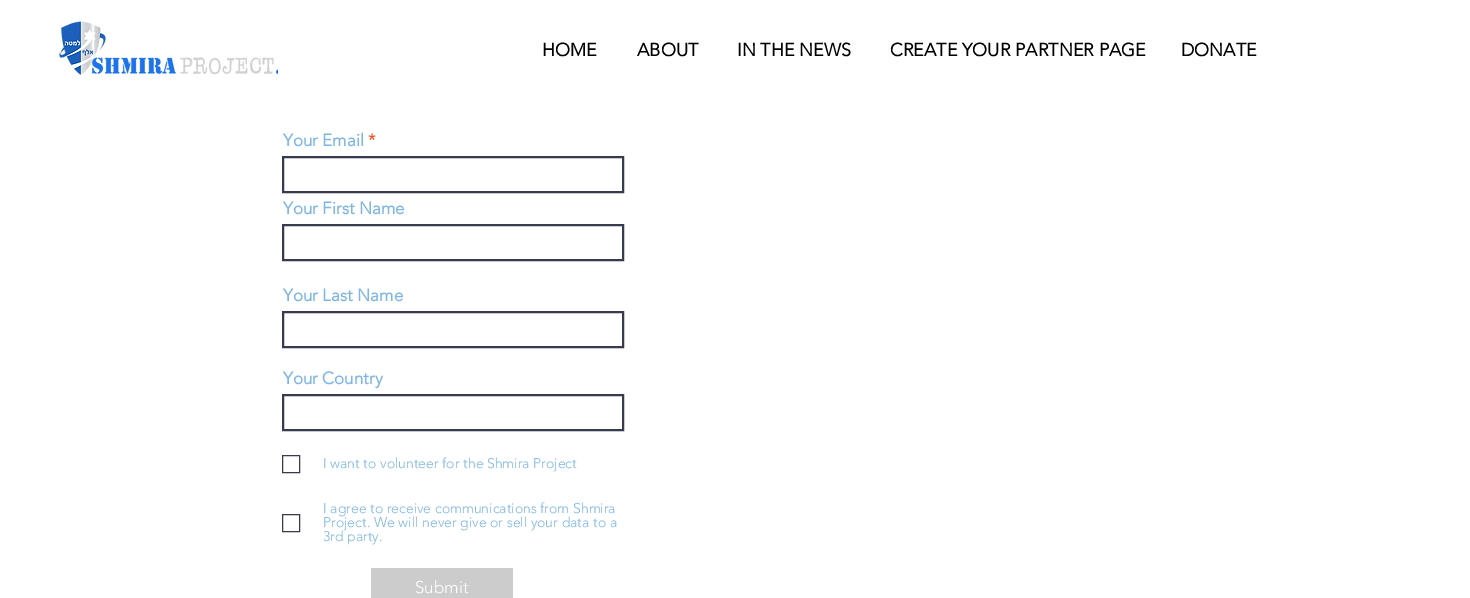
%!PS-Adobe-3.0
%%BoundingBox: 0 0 1470 598
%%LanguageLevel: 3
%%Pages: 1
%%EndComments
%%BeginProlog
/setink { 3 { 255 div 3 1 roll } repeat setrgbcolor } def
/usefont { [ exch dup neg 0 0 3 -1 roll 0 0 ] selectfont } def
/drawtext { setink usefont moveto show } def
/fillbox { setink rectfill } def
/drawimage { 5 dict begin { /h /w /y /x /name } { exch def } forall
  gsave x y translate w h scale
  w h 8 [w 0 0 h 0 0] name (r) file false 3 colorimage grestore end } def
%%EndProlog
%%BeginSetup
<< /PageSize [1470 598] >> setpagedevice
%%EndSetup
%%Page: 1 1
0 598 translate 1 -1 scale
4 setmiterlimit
0 0 1470 598 255 255 255 fillbox
(assets/img1.rgb) 59 21 47 54 drawimage
(assets/img2.rgb) 91 57 187 18 drawimage
(HOME) 542 56 /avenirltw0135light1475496-Bold 18 0 0 0 drawtext
(ABOUT) 637 56 /avenirltw0135light1475496-Bold 18 0 0 0 drawtext
(IN THE NEWS) 737 56 /avenirltw0135light1475496-Bold 18 0 0 0 drawtext
(CREATE YOUR PARTNER PAGE) 890 56 /avenirltw0135light1475496-Bold 18 0 0 0 drawtext
(DONATE) 1181 56 /avenirltw0135light1475496-Bold 18 0 0 0 drawtext
(Your Email) 283 146 /avenirltw0135light1475496-Bold 17 126 183 228 drawtext
(*) 368 146 /avenirltw0135light1475496-Bold 17 241 86 42 drawtext
55 59 77 setink
2 setlinewidth
283 157 340 35 rectstroke
(Your First Name) 283 214 /avenirltw0135light1475496-Bold 17 126 183 228 drawtext
55 59 77 setink
283 225 340 35 rectstroke
(Your Last Name) 283 301 /avenirltw0135light1475496-Bold 17 126 183 228 drawtext
55 59 77 setink
283 312 340 35 rectstroke
(Your Country) 283 384 /avenirltw0135light1475496-Bold 17 126 183 228 drawtext
55 59 77 setink
283 395 340 35 rectstroke
1 setlinewidth
282.5 455.5 17 17 rectstroke
(I want to volunteer for the Shmira Project) 323 468 /avenirltw0135light1475496-Light 14 126 183 228 drawtext
55 59 77 setink
282.5 514.5 17 17 rectstroke
(I agree to receive communications from Shmira) 323 513 /avenirltw0135light1475496-Light 14 126 183 228 drawtext
(Project. We will never give or sell your data to a) 323 527 /avenirltw0135light1475496-Light 14 126 183 228 drawtext
(3rd party.) 323 541 /avenirltw0135light1475496-Light 14 126 183 228 drawtext
371 568 142 30 204 204 204 fillbox
(Submit) 415 593 /avenirltw0135light1475496-Light 17 255 255 255 drawtext
showpage
%%EOF
